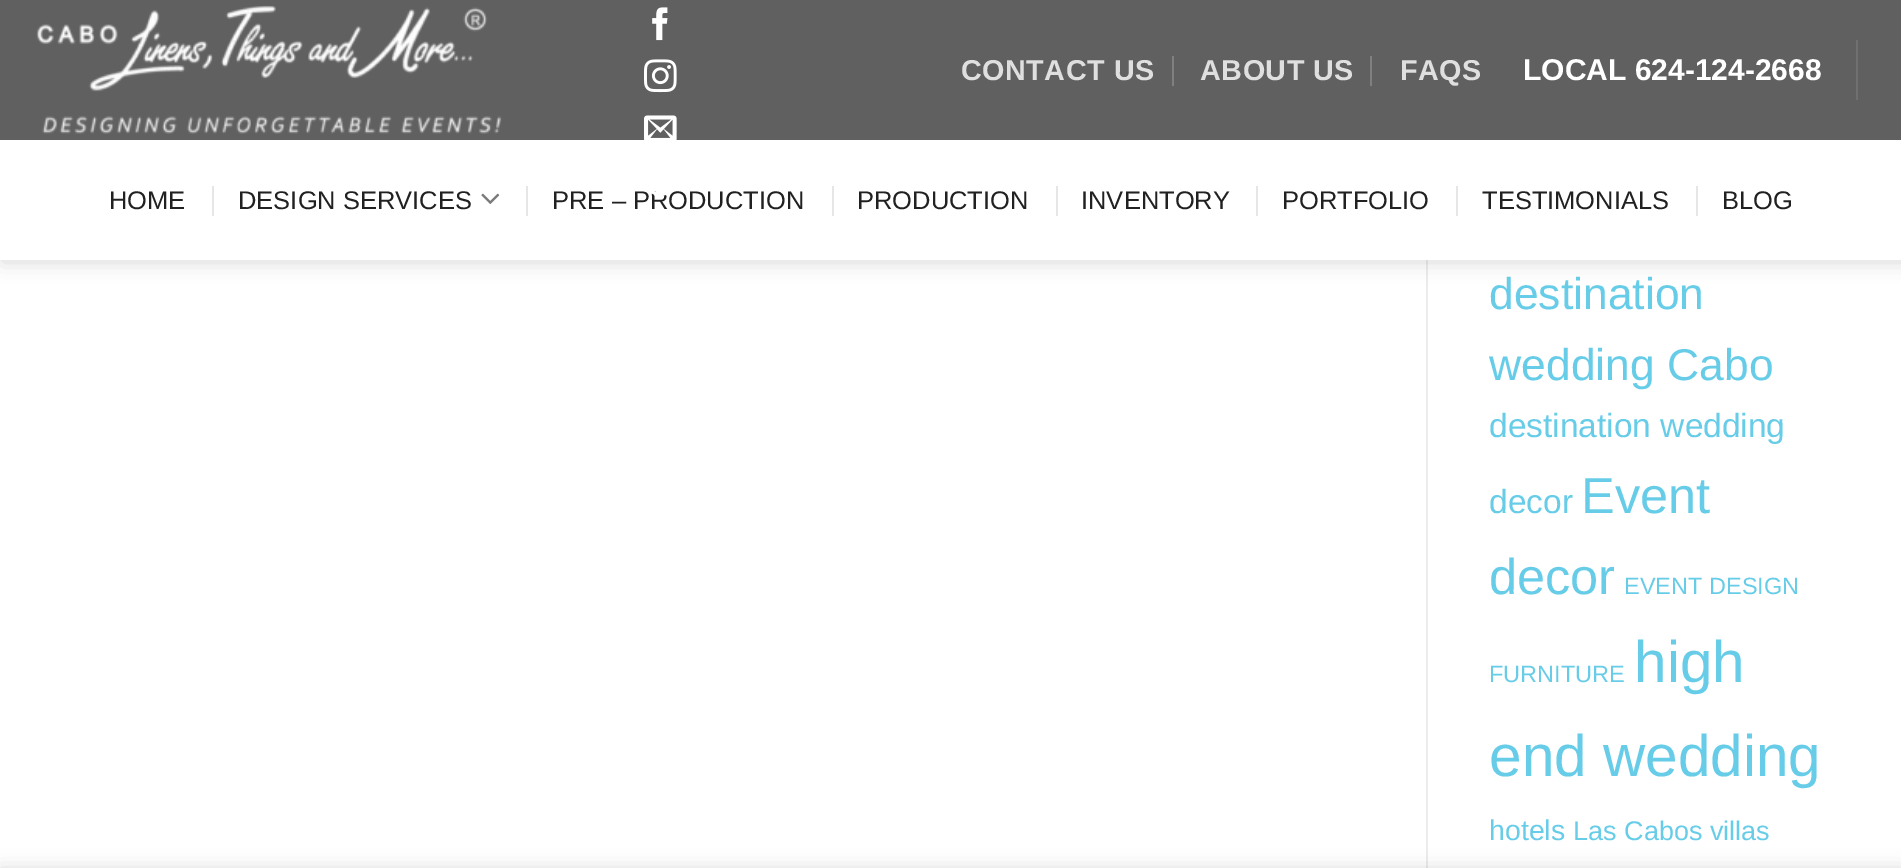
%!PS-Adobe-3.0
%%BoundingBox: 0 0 1901 868
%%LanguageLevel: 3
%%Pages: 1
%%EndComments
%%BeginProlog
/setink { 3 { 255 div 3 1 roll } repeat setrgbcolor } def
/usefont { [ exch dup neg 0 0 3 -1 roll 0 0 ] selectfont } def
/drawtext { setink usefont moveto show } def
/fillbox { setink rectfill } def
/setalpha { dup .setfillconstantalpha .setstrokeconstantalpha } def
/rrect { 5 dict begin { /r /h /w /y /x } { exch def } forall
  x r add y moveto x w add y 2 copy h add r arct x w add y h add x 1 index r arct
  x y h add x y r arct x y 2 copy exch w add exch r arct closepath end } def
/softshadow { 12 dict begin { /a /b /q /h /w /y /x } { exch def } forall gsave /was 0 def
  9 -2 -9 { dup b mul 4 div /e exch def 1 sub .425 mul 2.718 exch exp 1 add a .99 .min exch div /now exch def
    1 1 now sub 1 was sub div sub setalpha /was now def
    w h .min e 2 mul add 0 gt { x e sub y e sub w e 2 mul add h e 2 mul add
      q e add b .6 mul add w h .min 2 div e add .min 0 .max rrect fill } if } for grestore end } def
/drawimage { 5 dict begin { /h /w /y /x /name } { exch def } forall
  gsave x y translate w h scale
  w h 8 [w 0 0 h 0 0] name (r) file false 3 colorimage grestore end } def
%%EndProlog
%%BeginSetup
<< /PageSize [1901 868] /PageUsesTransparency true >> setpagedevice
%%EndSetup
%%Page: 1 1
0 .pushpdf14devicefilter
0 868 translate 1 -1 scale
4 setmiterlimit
0 0 1901 868 255 255 255 fillbox
1426 260 2 608 236 236 236 fillbox
0 0 0 setink
2 2 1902 260 0 10 0.15 softshadow
0 0 1901 140 96 96 96 fillbox
(assets/img1.rgb) 36 5 466 129 drawimage
(assets/img2.rgb) 652 7 16 34 drawimage
(assets/img3.rgb) 644 59 33 34 drawimage
(assets/img4.rgb) 644 115 33 25 drawimage
0 140 1901 120 255 255 255 fillbox
(PRE – PRODUCTION) 552 209 /LiberationSans-Regular 25.5 33 33 33 drawtext
(assets/img5.rgb) 651 191 16 5 drawimage
/LiberationSans-Bold 28.75 usefont
223 223 223 setink
961 80 moveto 0.5 0 (CONTACT US) ashow
1172 56 2 30 128 128 128 fillbox
223 223 223 setink
1200 80 moveto 0.5 0 (ABOUT US) ashow
1370 56 2 30 128 128 128 fillbox
223 223 223 setink
1400 80 moveto 0.5 0 (FAQS) ashow
(LOCAL 624-124-2668) 1523 80 /LiberationSans-Bold 30 255 255 255 drawtext
1856 40 2 60 112 112 112 fillbox
(HOME) 109 209 /LiberationSans-Regular 25.5 33 33 33 drawtext
212 186 2 30 230 230 230 fillbox
(DESIGN SERVICES) 238 209 /LiberationSans-Regular 25.5 33 33 33 drawtext
(assets/img6.rgb) 481 193 19 11 drawimage
526 186 2 30 230 230 230 fillbox
832 186 2 30 230 230 230 fillbox
(PRODUCTION) 857 209 /LiberationSans-Regular 25.5 33 33 33 drawtext
1056 186 2 30 230 230 230 fillbox
(INVENTORY) 1081 209 /LiberationSans-Regular 25.5 33 33 33 drawtext
1256 186 2 30 230 230 230 fillbox
(PORTFOLIO) 1282 209 /LiberationSans-Regular 25.5 33 33 33 drawtext
1456 186 2 30 230 230 230 fillbox
(TESTIMONIALS) 1482 209 /LiberationSans-Regular 25.5 33 33 33 drawtext
1696 186 2 30 230 230 230 fillbox
(BLOG) 1722 209 /LiberationSans-Regular 25.5 33 33 33 drawtext
(destination) 1489 309 /LiberationSans-Regular 44.5 103 204 231 drawtext
(wedding Cabo) 1489 380 /LiberationSans-Regular 44.5 103 204 231 drawtext
(destination wedding) 1489 437 /LiberationSans-Regular 33.5 103 204 231 drawtext
(decor) 1489 513 /LiberationSans-Regular 33.5 103 204 231 drawtext
(Event) 1581 513 /LiberationSans-Regular 50.5 103 204 231 drawtext
(decor) 1489 594 /LiberationSans-Regular 50.5 103 204 231 drawtext
(EVENT DESIGN) 1624 594 /LiberationSans-Regular 23.5 103 204 231 drawtext
(FURNITURE) 1489 682 /LiberationSans-Regular 23.5 103 204 231 drawtext
(high) 1634 682 /LiberationSans-Regular 58.5 103 204 231 drawtext
(end wedding) 1489 776 /LiberationSans-Regular 58.5 103 204 231 drawtext
(hotels) 1489 840 /LiberationSans-Regular 28.5 103 204 231 drawtext
(Las Cabos villas) 1573 840 /LiberationSans-Regular 27 103 204 231 drawtext
0 0 0 setink
0 868 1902 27 0 9 0.14 softshadow
.poppdf14devicefilter showpage
%%EOF
